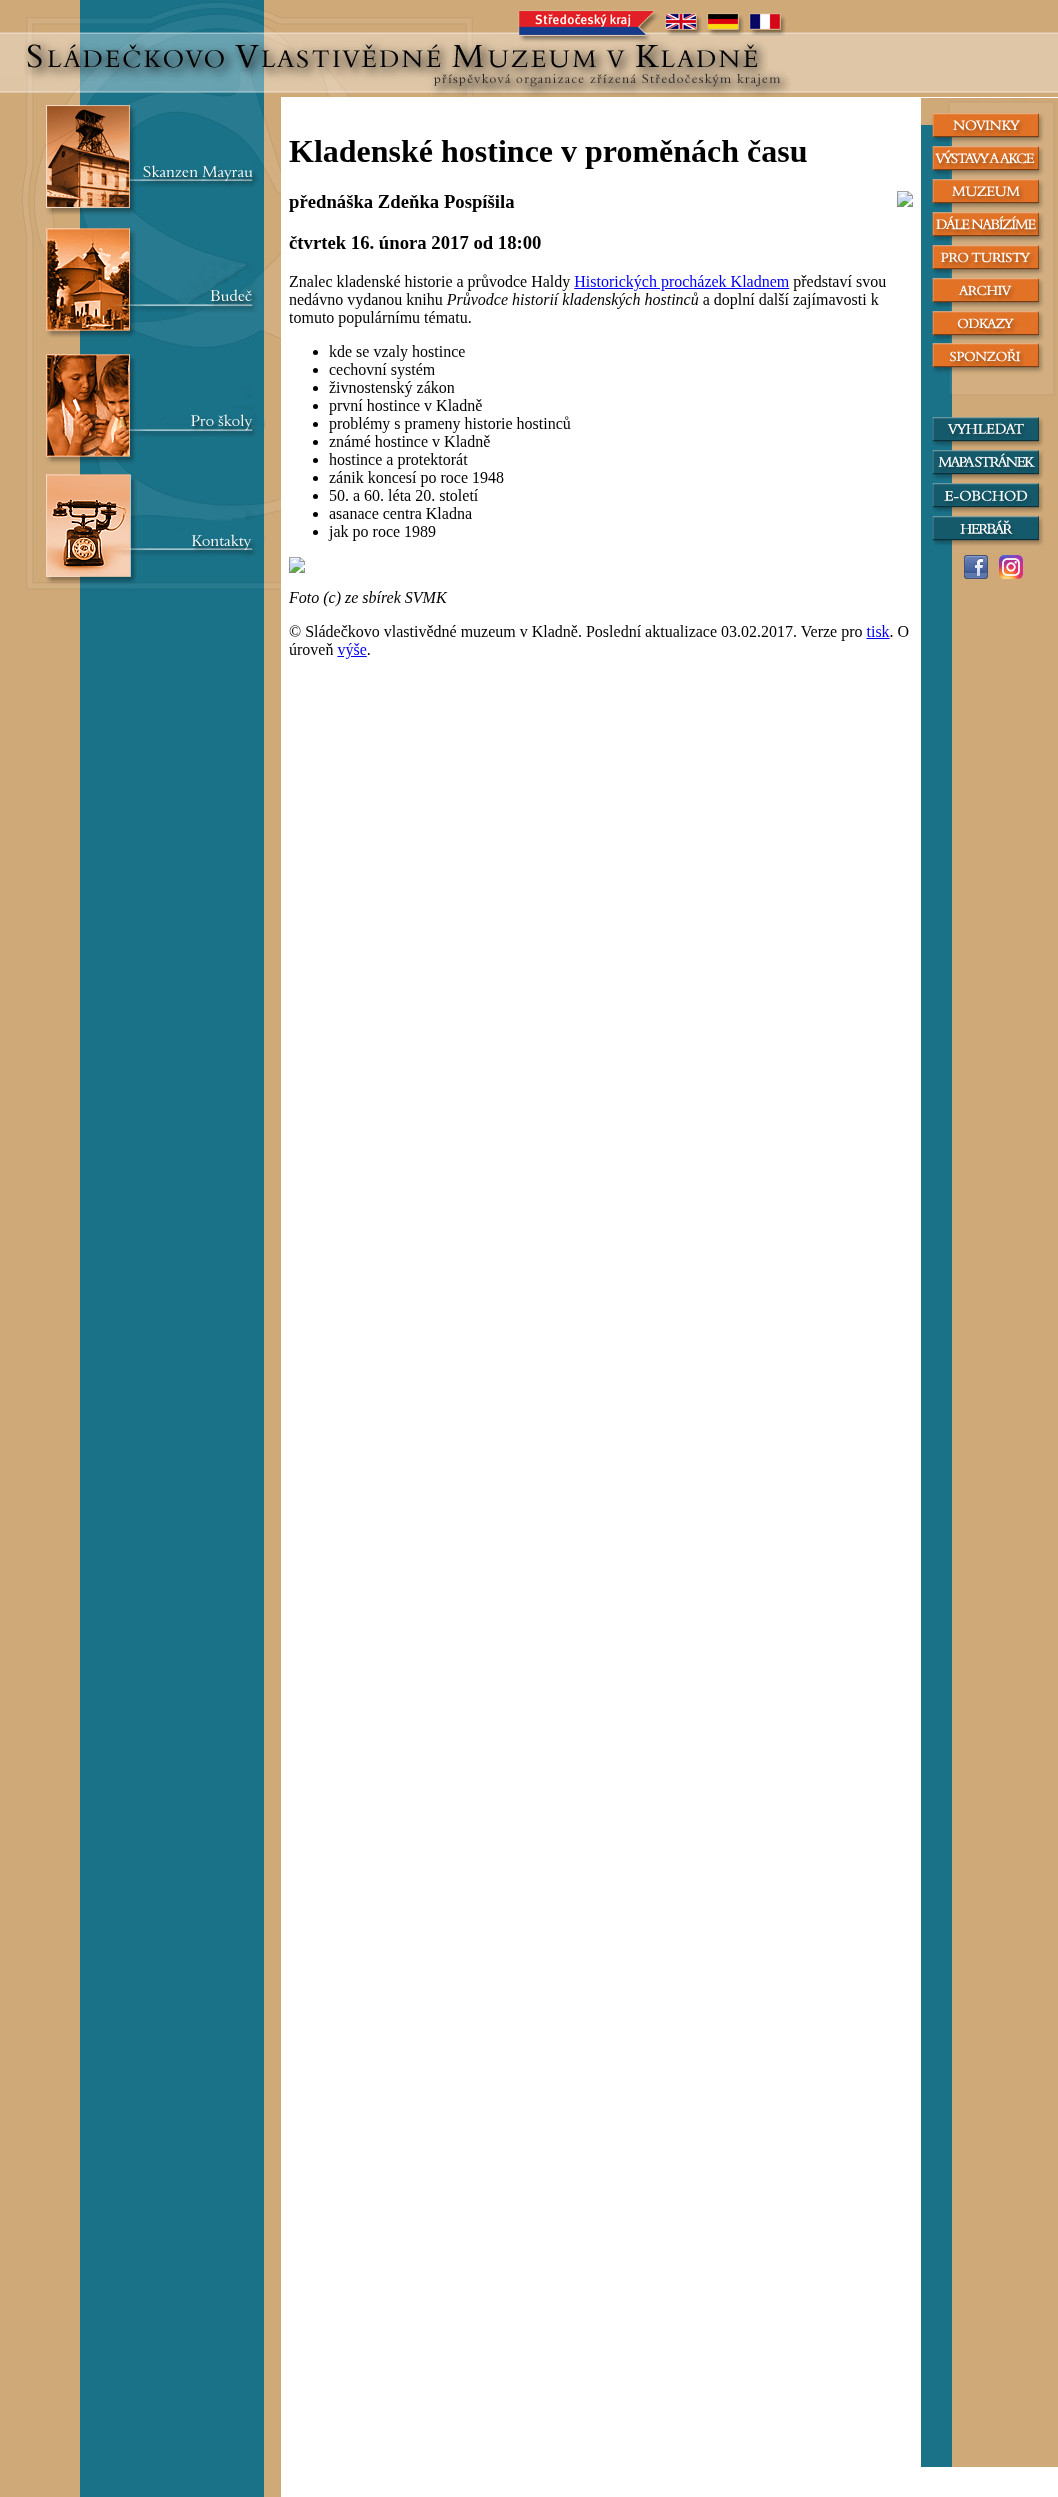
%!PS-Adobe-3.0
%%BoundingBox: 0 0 1058 2497
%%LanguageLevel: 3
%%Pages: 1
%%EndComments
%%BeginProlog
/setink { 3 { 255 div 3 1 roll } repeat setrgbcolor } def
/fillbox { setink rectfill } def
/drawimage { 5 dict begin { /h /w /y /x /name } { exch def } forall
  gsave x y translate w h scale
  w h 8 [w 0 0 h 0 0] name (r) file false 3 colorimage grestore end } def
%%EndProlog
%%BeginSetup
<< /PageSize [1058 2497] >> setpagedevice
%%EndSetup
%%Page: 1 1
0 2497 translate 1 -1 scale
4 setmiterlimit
0 0 1058 2497 255 255 255 fillbox
(assets/img1.rgb) 0 0 1058 97 drawimage
(assets/img2.rgb) 80 0 184 8 drawimage
(assets/img3.rgb) 24 8 492 89 drawimage
(assets/img4.rgb) 518 10 146 36 drawimage
(assets/img5.rgb) 665 13 37 23 drawimage
(assets/img6.rgb) 707 13 37 23 drawimage
(assets/img7.rgb) 749 13 37 23 drawimage
(assets/img8.rgb) 516 46 148 22 drawimage
(assets/img9.rgb) 664 41 104 27 drawimage
(assets/img10.rgb) 516 68 121 29 drawimage
(assets/img11.rgb) 637 68 149 29 drawimage
(assets/img12.rgb) 786 75 4 18 drawimage
790 81 1 6 217 193 161 fillbox
(assets/img13.rgb) 0 97 281 2400 drawimage
(assets/img14.rgb) 26 97 234 8 drawimage
(assets/img15.rgb) 22 105 23 485 drawimage
(assets/img16.rgb) 45 105 95 114 drawimage
(assets/img17.rgb) 140 105 141 332 drawimage
(assets/img18.rgb) 45 219 95 9 drawimage
(assets/img19.rgb) 45 228 95 110 drawimage
(assets/img20.rgb) 45 354 95 114 drawimage
(assets/img21.rgb) 99 468 32 6 drawimage
(assets/img22.rgb) 45 474 96 114 drawimage
(assets/img23.rgb) 141 481 140 109 drawimage
(assets/img24.rgb) 45 588 96 2 drawimage
(assets/img25.rgb) 921 98 137 14 drawimage
921 112 9 13 207 169 120 fillbox
(assets/img37.rgb) 921 125 137 2342 drawimage
(assets/img26.rgb) 930 112 118 33 drawimage
(assets/img27.rgb) 1048 112 10 284 drawimage
(assets/img28.rgb) 932 145 116 33 drawimage
(assets/img29.rgb) 932 178 116 33 drawimage
(assets/img30.rgb) 932 211 116 33 drawimage
(assets/img31.rgb) 932 244 116 33 drawimage
(assets/img32.rgb) 932 277 116 33 drawimage
(assets/img33.rgb) 932 310 116 32 drawimage
(assets/img34.rgb) 932 342 116 36 drawimage
(assets/img35.rgb) 949 378 99 18 drawimage
(assets/img36.rgb) 288 140 625 519 drawimage
(assets/img38.rgb) 932 417 112 30 drawimage
(assets/img39.rgb) 932 450 112 30 drawimage
(assets/img40.rgb) 932 483 112 30 drawimage
(assets/img41.rgb) 932 516 112 30 drawimage
(assets/img42.rgb) 964 555 24 24 drawimage
(assets/img43.rgb) 999 555 24 24 drawimage
showpage
%%EOF
